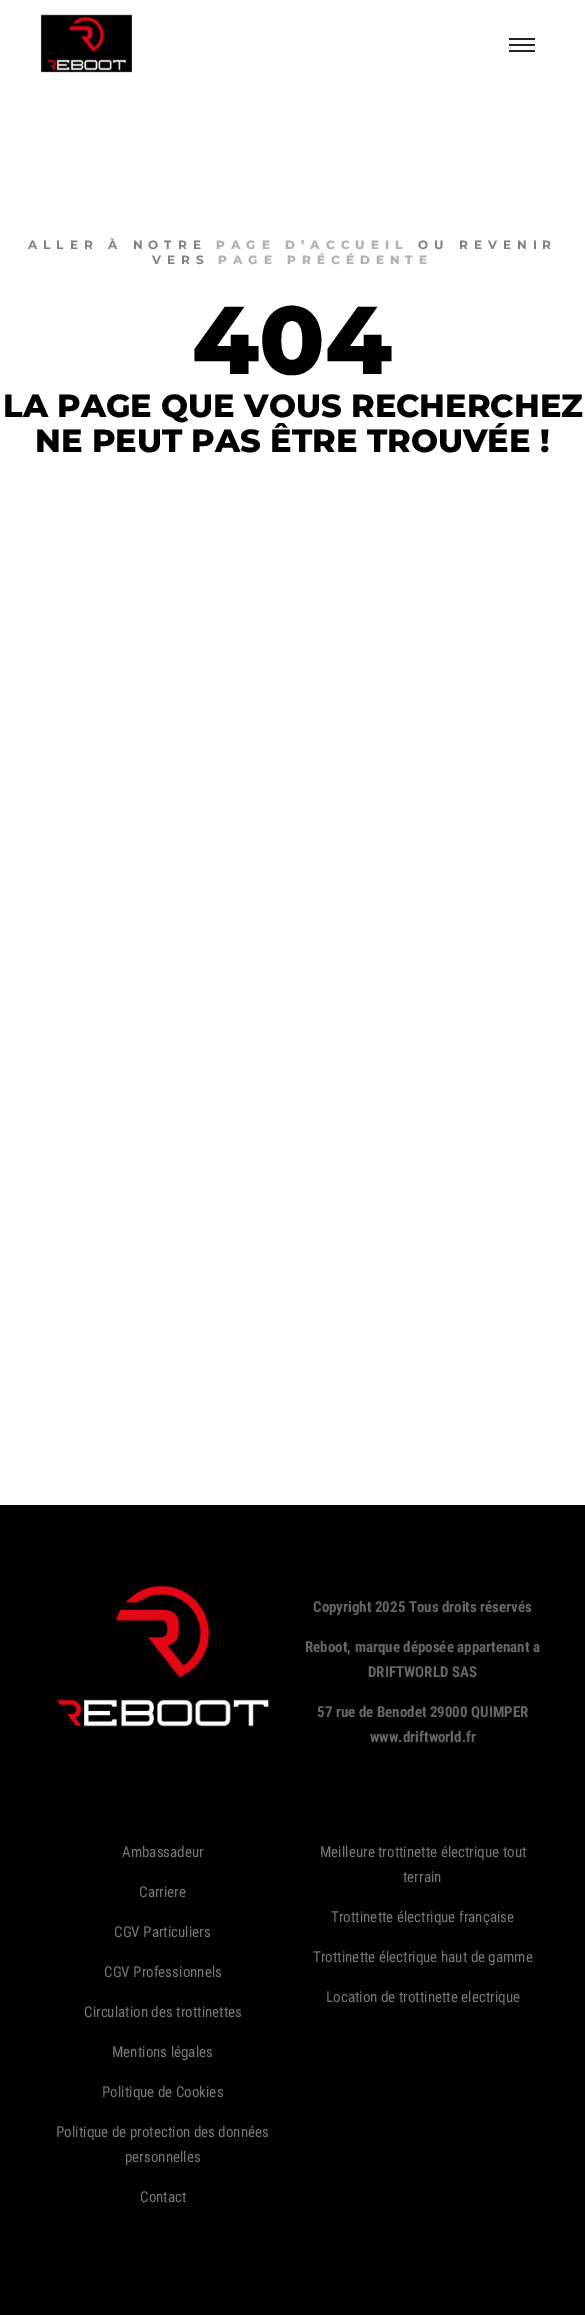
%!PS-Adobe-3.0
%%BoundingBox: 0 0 585 2315
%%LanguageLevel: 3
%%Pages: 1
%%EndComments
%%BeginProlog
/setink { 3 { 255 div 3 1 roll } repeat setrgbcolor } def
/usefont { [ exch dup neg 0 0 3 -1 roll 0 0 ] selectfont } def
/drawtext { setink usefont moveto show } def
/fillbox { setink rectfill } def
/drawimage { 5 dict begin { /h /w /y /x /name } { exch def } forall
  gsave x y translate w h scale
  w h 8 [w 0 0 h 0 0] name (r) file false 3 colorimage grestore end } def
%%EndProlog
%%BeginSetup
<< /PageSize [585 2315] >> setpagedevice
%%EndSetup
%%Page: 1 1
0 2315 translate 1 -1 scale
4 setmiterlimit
0 0 585 2315 255 255 255 fillbox
(assets/img1.rgb) 40 14 92 59 drawimage
509 44 26 2 34 34 34 fillbox
509 38 26 2 34 34 34 fillbox
509 50 26 2 34 34 34 fillbox
/Montserrat-Bold 12 usefont
128 128 128 setink
28 249 moveto 6 0 (ALLER À NOTRE) ashow
/Montserrat-ExtraBold 12 usefont
179 179 179 setink
216 249 moveto 6 0 (PAGE D’ACCUEIL) ashow
/Montserrat-Bold 12 usefont
128 128 128 setink
418 249 moveto 6 0 (OU REVENIR) ashow
152 264 moveto 6 0 (VERS) ashow
/Montserrat-ExtraBold 12 usefont
179 179 179 setink
218 264 moveto 6 0 (PAGE PRÉCÉDENTE) ashow
(404) 192 374 /Montserrat-ExtraBold 96 0 0 0 drawtext
(LA PAGE QUE VOUS RECHERCHEZ) 3 417 /Montserrat-ExtraBold 32 0 0 0 drawtext
(NE PEUT PAS ÊTRE TROUVÉE !) 35 452 /Montserrat-ExtraBold 32 0 0 0 drawtext
0 1505 585 810 0 0 0 fillbox
(assets/img2.rgb) 56 1585 213 142 drawimage
(Copyright 2025 Tous droits réservés) 313 1612 /RobotoCondensed-Bold 15 102 102 102 drawtext
(Reboot, marque déposée appartenant a) 305 1652 /RobotoCondensed-Bold 15 102 102 102 drawtext
(DRIFTWORLD SAS) 368 1677 /RobotoCondensed-Bold 15 102 102 102 drawtext
(57 rue de Benodet 29000 QUIMPER) 317 1717 /RobotoCondensed-Bold 15 102 102 102 drawtext
(www.driftworld.fr) 370 1742 /RobotoCondensed-Bold 15 102 102 102 drawtext
(Ambassadeur) 122 1857 /RobotoCondensed-Regular 15 119 119 119 drawtext
(Carriere) 139 1897 /RobotoCondensed-Regular 15 119 119 119 drawtext
(CGV Particuliers) 114 1937 /RobotoCondensed-Regular 15 119 119 119 drawtext
(CGV Professionnels) 104 1977 /RobotoCondensed-Regular 15 119 119 119 drawtext
(Circulation des trottinettes) 84 2017 /RobotoCondensed-Regular 15 119 119 119 drawtext
(Mentions légales) 112 2057 /RobotoCondensed-Regular 15 119 119 119 drawtext
(Politique de Cookies) 102 2097 /RobotoCondensed-Regular 15 119 119 119 drawtext
(Politique de protection des données) 56 2137 /RobotoCondensed-Regular 15 119 119 119 drawtext
(personnelles) 125 2162 /RobotoCondensed-Regular 15 119 119 119 drawtext
(Contact) 140 2202 /RobotoCondensed-Regular 15 119 119 119 drawtext
(Meilleure trottinette électrique tout) 320 1857 /RobotoCondensed-Regular 15 119 119 119 drawtext
(terrain) 403 1882 /RobotoCondensed-Regular 15 119 119 119 drawtext
(Trottinette électrique française) 331 1922 /RobotoCondensed-Regular 15 119 119 119 drawtext
(Trottinette électrique haut de gamme) 313 1962 /RobotoCondensed-Regular 15 119 119 119 drawtext
(Location de trottinette electrique) 326 2002 /RobotoCondensed-Regular 15 119 119 119 drawtext
showpage
%%EOF
